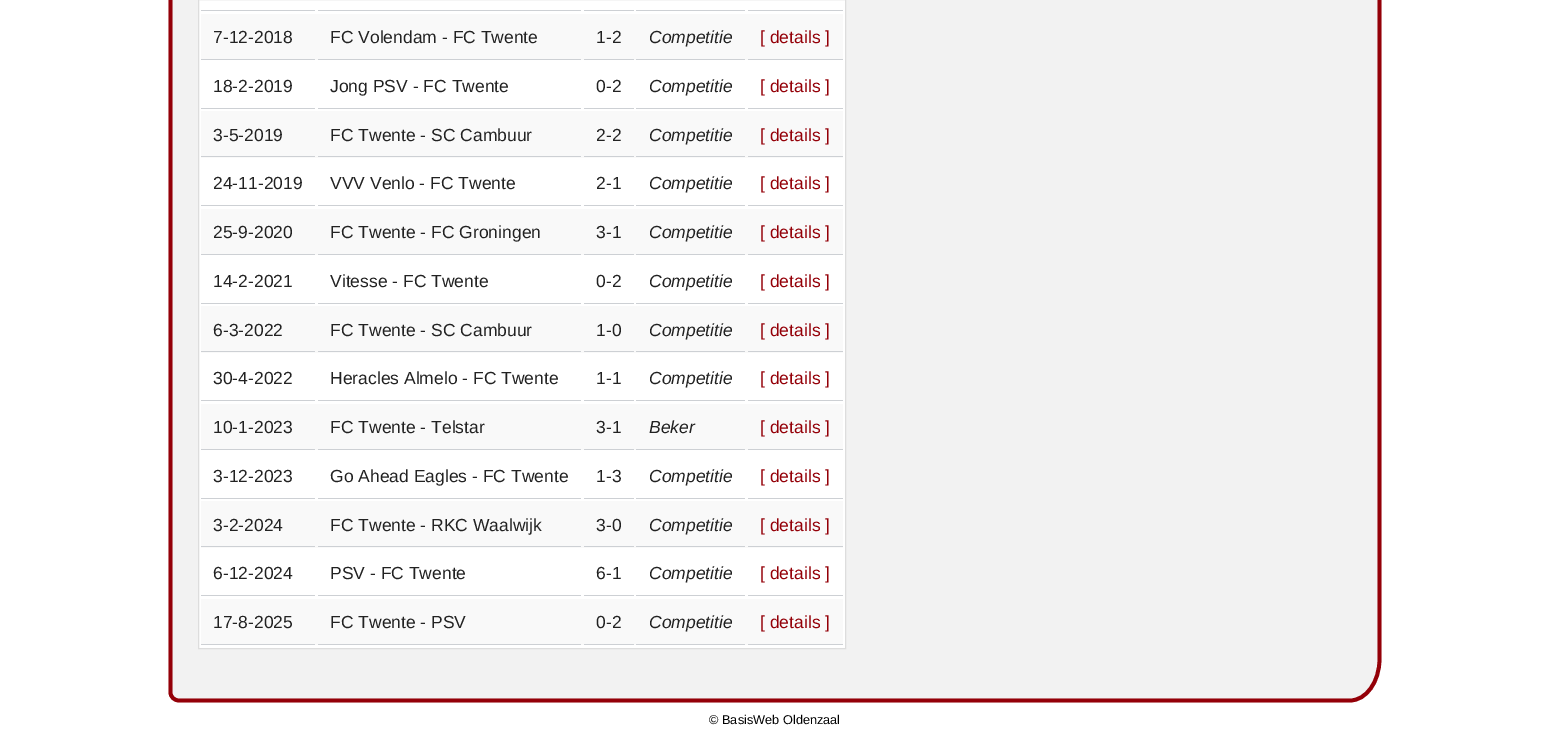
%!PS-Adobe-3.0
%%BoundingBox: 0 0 1548 755
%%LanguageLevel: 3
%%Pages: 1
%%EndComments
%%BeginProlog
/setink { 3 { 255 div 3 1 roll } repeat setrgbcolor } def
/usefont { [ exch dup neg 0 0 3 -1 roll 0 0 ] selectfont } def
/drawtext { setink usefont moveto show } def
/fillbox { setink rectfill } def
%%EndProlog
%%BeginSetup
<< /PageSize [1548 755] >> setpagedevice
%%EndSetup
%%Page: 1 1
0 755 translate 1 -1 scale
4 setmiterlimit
0 0 1548 755 255 255 255 fillbox
242 242 242 setink
179 -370 moveto 1371 -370 lineto 1377 -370 1381 -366 1381 -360 curveto 1381 659 lineto 1381 683 1367 702 1350 702 curveto 179 702 lineto 173 702 169 698 169 692 curveto 169 -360 lineto 169 -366 173 -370 179 -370 curveto closepath fill
148 0 8 setink
3.8 setlinewidth
179 -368 moveto 1371 -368 lineto 1375.5 -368 1379.5 -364.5 1379.5 -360 curveto 1379.5 659 lineto 1379.5 682 1366 700.5 1350 700.5 curveto 179 700.5 lineto 174.5 700.5 170.5 697 170.5 692.5 curveto 170.5 -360 lineto 170.5 -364.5 174.5 -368 179 -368 curveto closepath stroke
255 255 255 setink
198.5 -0.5 moveto 845.5 -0.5 lineto 845.5 648.5 lineto 198.5 648.5 lineto closepath gsave fill grestore
221 221 221 setink
1 setlinewidth
stroke
201 10 114 1 205 208 212 fillbox
318 10 263 1 205 208 212 fillbox
584 10 50 1 205 208 212 fillbox
636 10 109 1 205 208 212 fillbox
748 10 95 1 205 208 212 fillbox
201 14 642 46 249 249 249 fillbox
201 59 114 1 205 208 212 fillbox
(7-12-2018) 213 43 /LiberationSans-Regular 17.5 34 34 34 drawtext
318 59 263 1 205 208 212 fillbox
(FC Volendam - FC Twente) 330 43 /LiberationSans-Regular 17.5 34 34 34 drawtext
584 59 50 1 205 208 212 fillbox
(1-2) 596 43 /LiberationSans-Regular 17.5 34 34 34 drawtext
636 59 109 1 205 208 212 fillbox
(Competitie) 649 43 /LiberationSans-Italic 17.5 34 34 34 drawtext
748 59 95 1 205 208 212 fillbox
([ details ]) 760 43 /LiberationSans-Regular 17.5 148 0 8 drawtext
201 108 114 1 205 208 212 fillbox
(18-2-2019) 213 92 /LiberationSans-Regular 17.5 34 34 34 drawtext
318 108 263 1 205 208 212 fillbox
(Jong PSV - FC Twente) 330 92 /LiberationSans-Regular 17.5 34 34 34 drawtext
584 108 50 1 205 208 212 fillbox
(0-2) 596 92 /LiberationSans-Regular 17.5 34 34 34 drawtext
636 108 109 1 205 208 212 fillbox
(Competitie) 649 92 /LiberationSans-Italic 17.5 34 34 34 drawtext
748 108 95 1 205 208 212 fillbox
([ details ]) 760 92 /LiberationSans-Regular 17.5 148 0 8 drawtext
201 111 642 47 249 249 249 fillbox
201 156 114 1 205 208 212 fillbox
(3-5-2019) 213 141 /LiberationSans-Regular 17.5 34 34 34 drawtext
318 156 263 1 205 208 212 fillbox
(FC Twente - SC Cambuur) 330 141 /LiberationSans-Regular 17.5 34 34 34 drawtext
584 156 50 1 205 208 212 fillbox
(2-2) 596 141 /LiberationSans-Regular 17.5 34 34 34 drawtext
636 156 109 1 205 208 212 fillbox
(Competitie) 649 141 /LiberationSans-Italic 17.5 34 34 34 drawtext
748 156 95 1 205 208 212 fillbox
([ details ]) 760 141 /LiberationSans-Regular 17.5 148 0 8 drawtext
201 205 114 1 205 208 212 fillbox
(24-11-2019) 213 189 /LiberationSans-Regular 17.5 34 34 34 drawtext
318 205 263 1 205 208 212 fillbox
(VVV Venlo - FC Twente) 330 189 /LiberationSans-Regular 17.5 34 34 34 drawtext
584 205 50 1 205 208 212 fillbox
(2-1) 596 189 /LiberationSans-Regular 17.5 34 34 34 drawtext
636 205 109 1 205 208 212 fillbox
(Competitie) 649 189 /LiberationSans-Italic 17.5 34 34 34 drawtext
748 205 95 1 205 208 212 fillbox
([ details ]) 760 189 /LiberationSans-Regular 17.5 148 0 8 drawtext
201 209 642 46 249 249 249 fillbox
201 254 114 1 205 208 212 fillbox
(25-9-2020) 213 238 /LiberationSans-Regular 17.5 34 34 34 drawtext
318 254 263 1 205 208 212 fillbox
(FC Twente - FC Groningen) 330 238 /LiberationSans-Regular 17.5 34 34 34 drawtext
584 254 50 1 205 208 212 fillbox
(3-1) 596 238 /LiberationSans-Regular 17.5 34 34 34 drawtext
636 254 109 1 205 208 212 fillbox
(Competitie) 649 238 /LiberationSans-Italic 17.5 34 34 34 drawtext
748 254 95 1 205 208 212 fillbox
([ details ]) 760 238 /LiberationSans-Regular 17.5 148 0 8 drawtext
201 303 114 1 205 208 212 fillbox
(14-2-2021) 213 287 /LiberationSans-Regular 17.5 34 34 34 drawtext
318 303 263 1 205 208 212 fillbox
(Vitesse - FC Twente) 330 287 /LiberationSans-Regular 17.5 34 34 34 drawtext
584 303 50 1 205 208 212 fillbox
(0-2) 596 287 /LiberationSans-Regular 17.5 34 34 34 drawtext
636 303 109 1 205 208 212 fillbox
(Competitie) 649 287 /LiberationSans-Italic 17.5 34 34 34 drawtext
748 303 95 1 205 208 212 fillbox
([ details ]) 760 287 /LiberationSans-Regular 17.5 148 0 8 drawtext
201 306 642 47 249 249 249 fillbox
201 351 114 1 205 208 212 fillbox
(6-3-2022) 213 336 /LiberationSans-Regular 17.5 34 34 34 drawtext
318 351 263 1 205 208 212 fillbox
(FC Twente - SC Cambuur) 330 336 /LiberationSans-Regular 17.5 34 34 34 drawtext
584 351 50 1 205 208 212 fillbox
(1-0) 596 336 /LiberationSans-Regular 17.5 34 34 34 drawtext
636 351 109 1 205 208 212 fillbox
(Competitie) 649 336 /LiberationSans-Italic 17.5 34 34 34 drawtext
748 351 95 1 205 208 212 fillbox
([ details ]) 760 336 /LiberationSans-Regular 17.5 148 0 8 drawtext
201 400 114 1 205 208 212 fillbox
(30-4-2022) 213 384 /LiberationSans-Regular 17.5 34 34 34 drawtext
318 400 263 1 205 208 212 fillbox
(Heracles Almelo - FC Twente) 330 384 /LiberationSans-Regular 17.5 34 34 34 drawtext
584 400 50 1 205 208 212 fillbox
(1-1) 596 384 /LiberationSans-Regular 17.5 34 34 34 drawtext
636 400 109 1 205 208 212 fillbox
(Competitie) 649 384 /LiberationSans-Italic 17.5 34 34 34 drawtext
748 400 95 1 205 208 212 fillbox
([ details ]) 760 384 /LiberationSans-Regular 17.5 148 0 8 drawtext
201 404 642 46 249 249 249 fillbox
201 449 114 1 205 208 212 fillbox
(10-1-2023) 213 433 /LiberationSans-Regular 17.5 34 34 34 drawtext
318 449 263 1 205 208 212 fillbox
(FC Twente - Telstar) 330 433 /LiberationSans-Regular 17.5 34 34 34 drawtext
584 449 50 1 205 208 212 fillbox
(3-1) 596 433 /LiberationSans-Regular 17.5 34 34 34 drawtext
636 449 109 1 205 208 212 fillbox
(Beker) 649 433 /LiberationSans-Italic 17.5 34 34 34 drawtext
748 449 95 1 205 208 212 fillbox
([ details ]) 760 433 /LiberationSans-Regular 17.5 148 0 8 drawtext
201 498 114 1 205 208 212 fillbox
(3-12-2023) 213 482 /LiberationSans-Regular 17.5 34 34 34 drawtext
318 498 263 1 205 208 212 fillbox
(Go Ahead Eagles - FC Twente) 330 482 /LiberationSans-Regular 17.5 34 34 34 drawtext
584 498 50 1 205 208 212 fillbox
(1-3) 596 482 /LiberationSans-Regular 17.5 34 34 34 drawtext
636 498 109 1 205 208 212 fillbox
(Competitie) 649 482 /LiberationSans-Italic 17.5 34 34 34 drawtext
748 498 95 1 205 208 212 fillbox
([ details ]) 760 482 /LiberationSans-Regular 17.5 148 0 8 drawtext
201 501 642 47 249 249 249 fillbox
201 546 114 1 205 208 212 fillbox
(3-2-2024) 213 531 /LiberationSans-Regular 17.5 34 34 34 drawtext
318 546 263 1 205 208 212 fillbox
(FC Twente - RKC Waalwijk) 330 531 /LiberationSans-Regular 17.5 34 34 34 drawtext
584 546 50 1 205 208 212 fillbox
(3-0) 596 531 /LiberationSans-Regular 17.5 34 34 34 drawtext
636 546 109 1 205 208 212 fillbox
(Competitie) 649 531 /LiberationSans-Italic 17.5 34 34 34 drawtext
748 546 95 1 205 208 212 fillbox
([ details ]) 760 531 /LiberationSans-Regular 17.5 148 0 8 drawtext
201 595 114 1 205 208 212 fillbox
(6-12-2024) 213 579 /LiberationSans-Regular 17.5 34 34 34 drawtext
318 595 263 1 205 208 212 fillbox
(PSV - FC Twente) 330 579 /LiberationSans-Regular 17.5 34 34 34 drawtext
584 595 50 1 205 208 212 fillbox
(6-1) 596 579 /LiberationSans-Regular 17.5 34 34 34 drawtext
636 595 109 1 205 208 212 fillbox
(Competitie) 649 579 /LiberationSans-Italic 17.5 34 34 34 drawtext
748 595 95 1 205 208 212 fillbox
([ details ]) 760 579 /LiberationSans-Regular 17.5 148 0 8 drawtext
201 599 642 46 249 249 249 fillbox
201 644 114 1 205 208 212 fillbox
(17-8-2025) 213 628 /LiberationSans-Regular 17.5 34 34 34 drawtext
318 644 263 1 205 208 212 fillbox
(FC Twente - PSV) 330 628 /LiberationSans-Regular 17.5 34 34 34 drawtext
584 644 50 1 205 208 212 fillbox
(0-2) 596 628 /LiberationSans-Regular 17.5 34 34 34 drawtext
636 644 109 1 205 208 212 fillbox
(Competitie) 649 628 /LiberationSans-Italic 17.5 34 34 34 drawtext
748 644 95 1 205 208 212 fillbox
([ details ]) 760 628 /LiberationSans-Regular 17.5 148 0 8 drawtext
(© BasisWeb Oldenzaal) 709 724 /LiberationSans-Regular 12.75 0 0 0 drawtext
showpage
%%EOF
